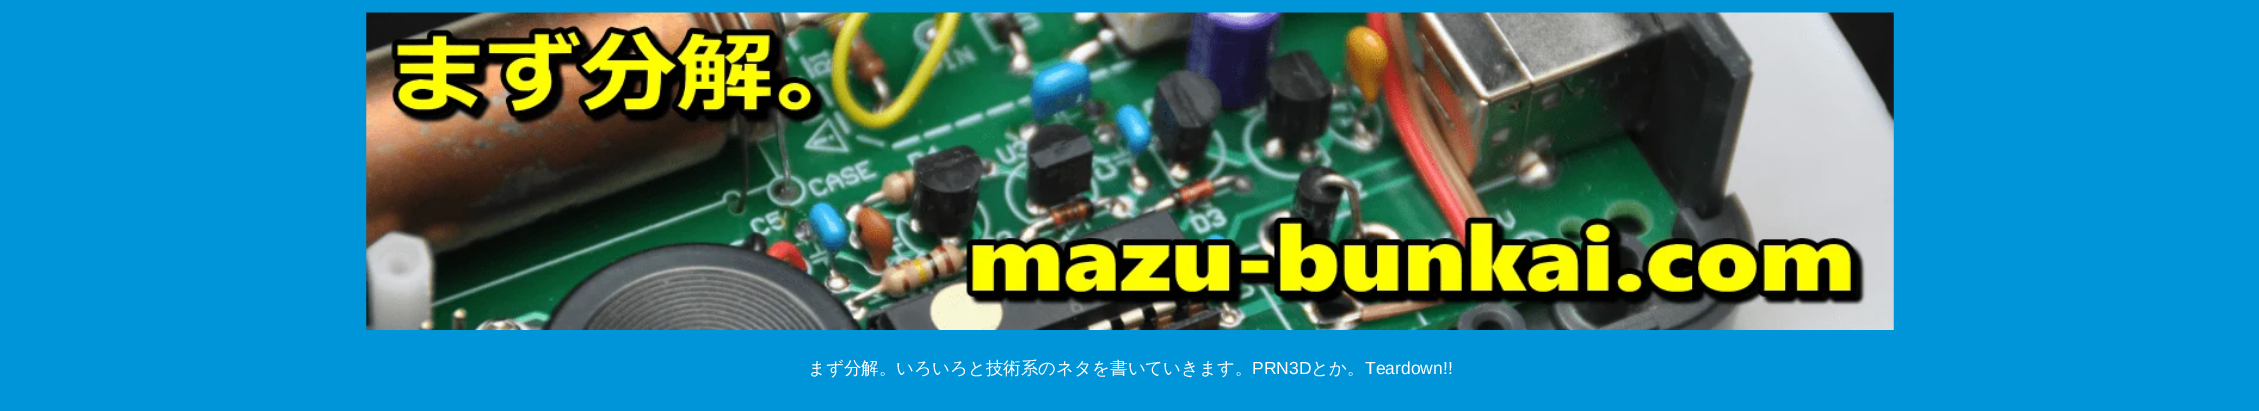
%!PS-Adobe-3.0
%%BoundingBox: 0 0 2259 411
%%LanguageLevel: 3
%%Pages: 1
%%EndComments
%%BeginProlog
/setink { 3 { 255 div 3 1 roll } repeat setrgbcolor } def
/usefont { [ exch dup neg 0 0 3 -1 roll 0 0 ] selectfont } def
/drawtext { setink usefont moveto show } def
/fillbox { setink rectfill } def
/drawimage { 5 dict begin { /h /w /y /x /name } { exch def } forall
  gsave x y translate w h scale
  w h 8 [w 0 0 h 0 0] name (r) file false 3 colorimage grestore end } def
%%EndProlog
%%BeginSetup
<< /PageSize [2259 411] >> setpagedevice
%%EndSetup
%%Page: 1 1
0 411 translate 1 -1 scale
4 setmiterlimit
0 0 2259 411 0 149 217 fillbox
(assets/img1.rgb) 366 12 1528 318 drawimage
(まず分解。いろいろと技術系のネタを書いていきます。) 808 374 /WenQuanYiZenHei-Medium 17.5 255 255 255 drawtext
(PRN3D) 1252 374 /LiberationSans-Regular 17.5 255 255 255 drawtext
(とか。) 1311 374 /WenQuanYiZenHei-Medium 17.5 255 255 255 drawtext
(Teardown!!) 1365 374 /LiberationSans-Regular 17.5 255 255 255 drawtext
showpage
%%EOF
